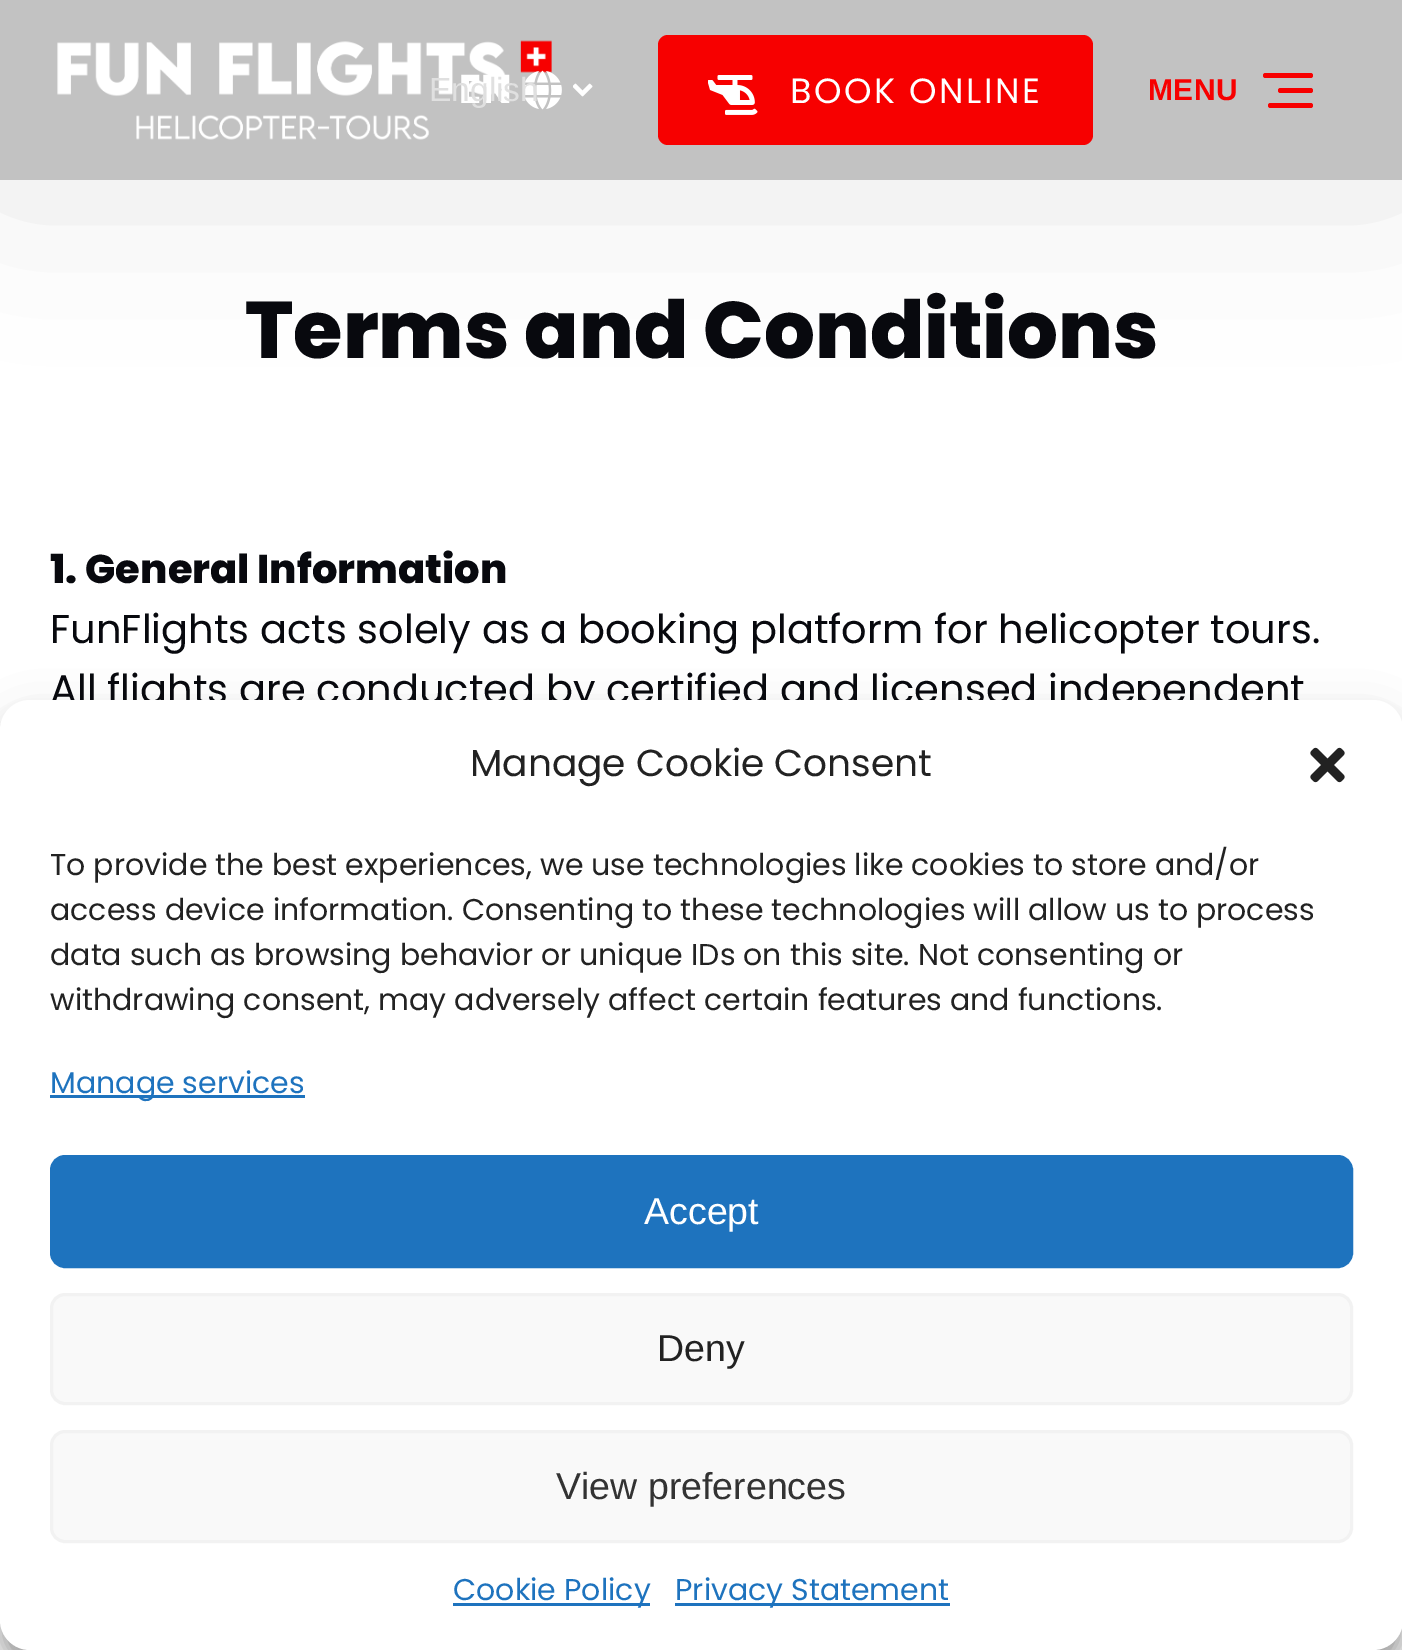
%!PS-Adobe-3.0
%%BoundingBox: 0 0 1402 1650
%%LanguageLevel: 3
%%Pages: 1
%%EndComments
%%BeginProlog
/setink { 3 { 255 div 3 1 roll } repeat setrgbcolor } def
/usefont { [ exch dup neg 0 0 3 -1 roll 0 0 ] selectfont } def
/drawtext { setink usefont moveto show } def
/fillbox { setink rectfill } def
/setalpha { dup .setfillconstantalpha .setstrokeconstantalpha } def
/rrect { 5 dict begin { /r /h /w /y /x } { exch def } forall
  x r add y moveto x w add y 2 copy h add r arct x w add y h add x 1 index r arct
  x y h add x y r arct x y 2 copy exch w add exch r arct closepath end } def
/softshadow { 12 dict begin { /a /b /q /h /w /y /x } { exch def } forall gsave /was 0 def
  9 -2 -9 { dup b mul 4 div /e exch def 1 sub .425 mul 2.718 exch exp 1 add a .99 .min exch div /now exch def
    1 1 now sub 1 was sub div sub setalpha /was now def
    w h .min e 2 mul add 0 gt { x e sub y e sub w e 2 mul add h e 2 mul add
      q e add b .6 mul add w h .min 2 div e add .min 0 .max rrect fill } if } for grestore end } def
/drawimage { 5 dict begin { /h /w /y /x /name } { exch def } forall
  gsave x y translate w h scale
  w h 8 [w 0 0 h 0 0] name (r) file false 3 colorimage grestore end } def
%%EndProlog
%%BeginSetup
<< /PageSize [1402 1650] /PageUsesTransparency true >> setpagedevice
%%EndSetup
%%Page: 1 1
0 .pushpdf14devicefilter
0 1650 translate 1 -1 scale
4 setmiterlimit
0 0 1402 1650 255 255 255 fillbox
8 9 14 setink
0 -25 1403 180 0 94 0.15 softshadow
0 0 1402 180 194 194 194 fillbox
(assets/img1.rgb) 57 40 495 100 drawimage
(EN) 459 103 /Poppins-ExtraBold 40 255 255 255 drawtext
(assets/img2.rgb) 523 70 39 40 drawimage
(assets/img3.rgb) 573 83 20 14 drawimage
(English) 429 101 /LiberationSans-Regular 33.5 224 224 224 drawtext
247 0 0 setink
658 35 435 110 10 rrect fill
(assets/img4.rgb) 708 75 50 40 drawimage
/Poppins-Regular 35 usefont
255 255 255 setink
790 103 moveto 2.5 0 (BOOK ONLINE) ashow
/LiberationSans-Bold 30 usefont
247 0 0 setink
1148 100 moveto 0.5 0 (MENU) ashow
1278 88 35 5 2.5 rrect fill
1263 73 50 5 2.5 rrect fill
1268 103 45 5 2.5 rrect fill
(Terms and Conditions) 245 358 /Poppins-ExtraBold 80 8 9 14 drawtext
(1. General Information) 50 583 /Poppins-ExtraBold 40 8 9 14 drawtext
(FunFlights acts solely as a booking platform for helicopter tours.) 50 643 /Poppins-Regular 40 8 9 14 drawtext
(All flights are conducted by certified and licensed independent) 50 703 /Poppins-Regular 40 8 9 14 drawtext
0 0 0 setink
0 715 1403 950 30 7.5 0.23 softshadow
0 725 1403 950 30 25 0.19 softshadow
255 255 255 setink
0 700 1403 950 30 rrect fill
(Manage Cookie Consent) 470 776 /Poppins-Regular 37.5 34 34 34 drawtext
(assets/img5.rgb) 1310 747 35 36 drawimage
(To provide the best experiences, we use technologies like cookies to store and/or) 50 875 /Poppins-Regular 30 34 34 34 drawtext
(access device information. Consenting to these technologies will allow us to process) 50 920 /Poppins-Regular 30 34 34 34 drawtext
(data such as browsing behavior or unique IDs on this site. Not consenting or) 50 965 /Poppins-Regular 30 34 34 34 drawtext
(withdrawing consent, may adversely affect certain features and functions.) 50 1010 /Poppins-Regular 30 34 34 34 drawtext
50 1095 255 3 30 115 190 fillbox
(Manage services) 50 1093 /Poppins-Regular 30 30 115 190 drawtext
51.5 1156.5 1300 110 13.5 rrect gsave fill grestore
3 setlinewidth
stroke
(Accept) 644 1224 /LiberationSans-Regular 37.5 255 255 255 drawtext
249 249 249 setink
51.5 1294.5 1300 109 13.5 rrect gsave fill grestore
242 242 242 setink
stroke
(Deny) 657 1361 /LiberationSans-Regular 37.5 34 34 34 drawtext
249 249 249 setink
51.5 1431.5 1300 110 13.5 rrect gsave fill grestore
242 242 242 setink
stroke
(View preferences) 556 1499 /LiberationSans-Regular 37.5 51 51 51 drawtext
453 1603 197 3 30 115 190 fillbox
(Cookie Policy) 453 1600 /Poppins-Regular 30 30 115 190 drawtext
675 1603 275 3 30 115 190 fillbox
(Privacy Statement) 675 1600 /Poppins-Regular 30 30 115 190 drawtext
.poppdf14devicefilter showpage
%%EOF
